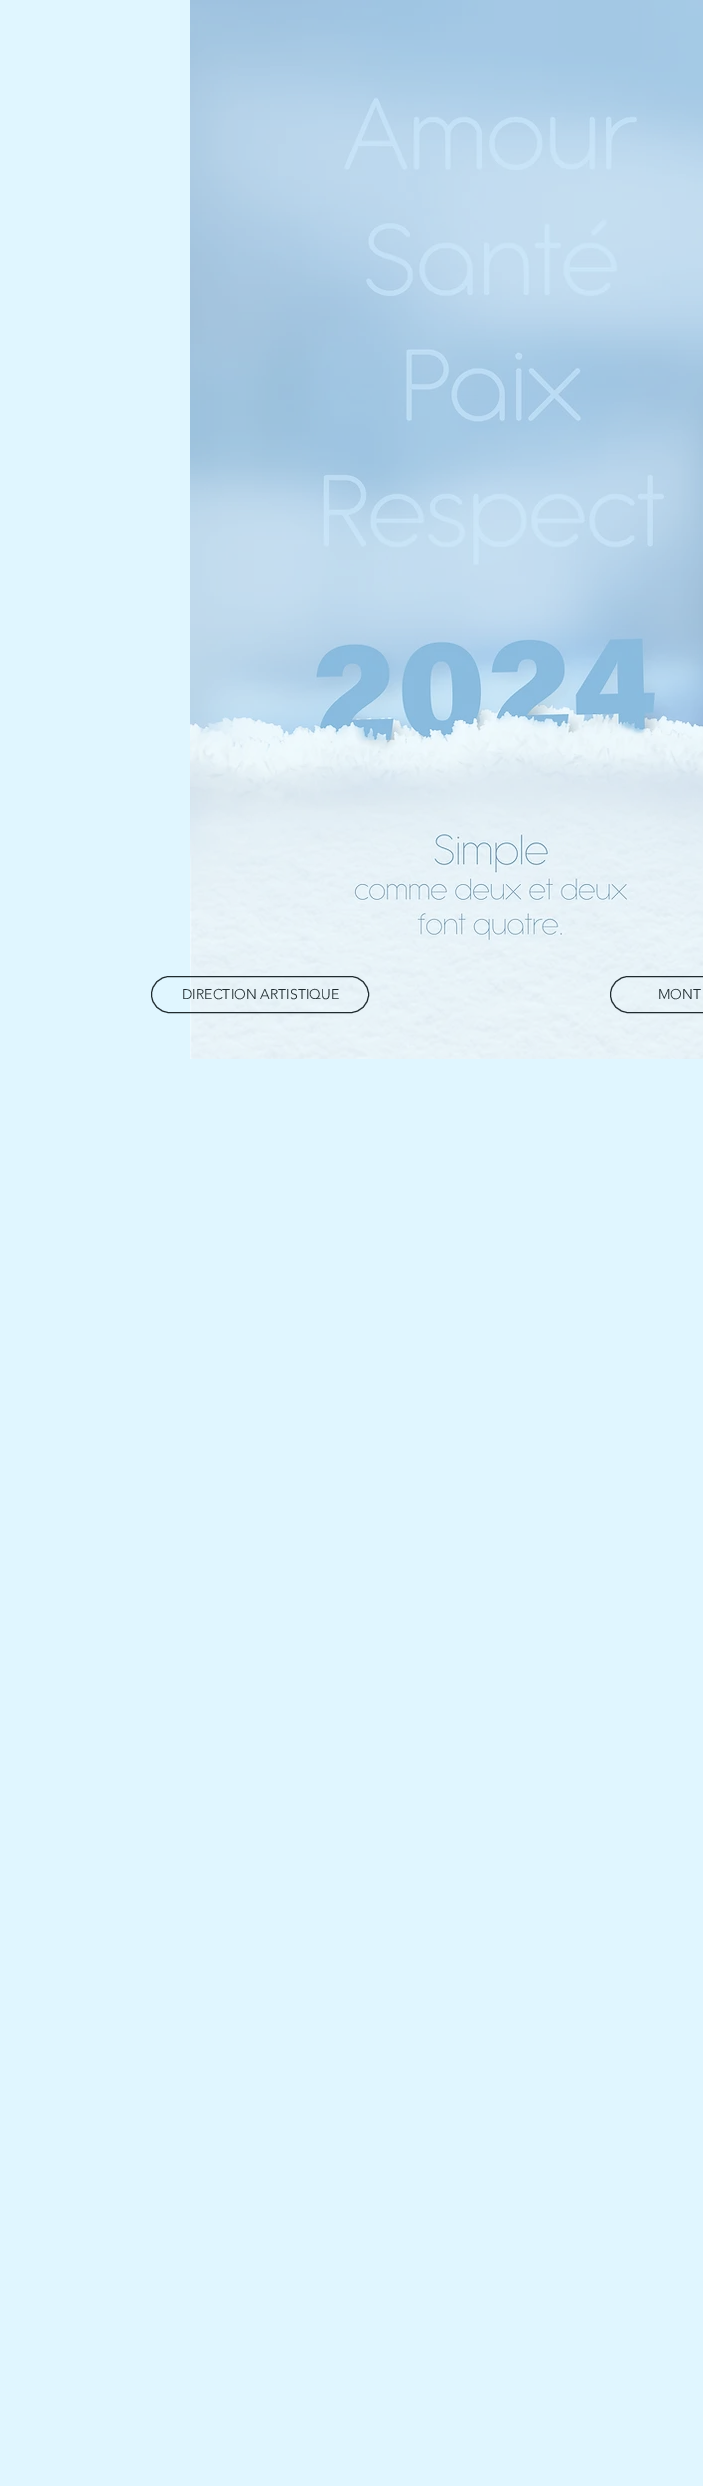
%!PS-Adobe-3.0
%%BoundingBox: 0 0 703 2486
%%LanguageLevel: 3
%%Pages: 1
%%EndComments
%%BeginProlog
/setink { 3 { 255 div 3 1 roll } repeat setrgbcolor } def
/usefont { [ exch dup neg 0 0 3 -1 roll 0 0 ] selectfont } def
/drawtext { setink usefont moveto show } def
/fillbox { setink rectfill } def
/rrect { 5 dict begin { /r /h /w /y /x } { exch def } forall
  x r add y moveto x w add y 2 copy h add r arct x w add y h add x 1 index r arct
  x y h add x y r arct x y 2 copy exch w add exch r arct closepath end } def
/drawimage { 5 dict begin { /h /w /y /x /name } { exch def } forall
  gsave x y translate w h scale
  w h 8 [w 0 0 h 0 0] name (r) file false 3 colorimage grestore end } def
%%EndProlog
%%BeginSetup
<< /PageSize [703 2486] >> setpagedevice
%%EndSetup
%%Page: 1 1
0 2486 translate 1 -1 scale
4 setmiterlimit
0 0 703 2486 224 246 255 fillbox
(assets/img1.rgb) 190 0 513 1059 drawimage
31 43 47 setink
151.5 976.5 217 36 18 rrect stroke
(DIRECTION ARTISTIQUE) 182 999 /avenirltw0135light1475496-Light 14 31 43 47 drawtext
610.5 976.5 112 36 18 rrect stroke
(MONT) 658 999 /avenirltw0135light1475496-Light 14 31 43 47 drawtext
showpage
%%EOF
